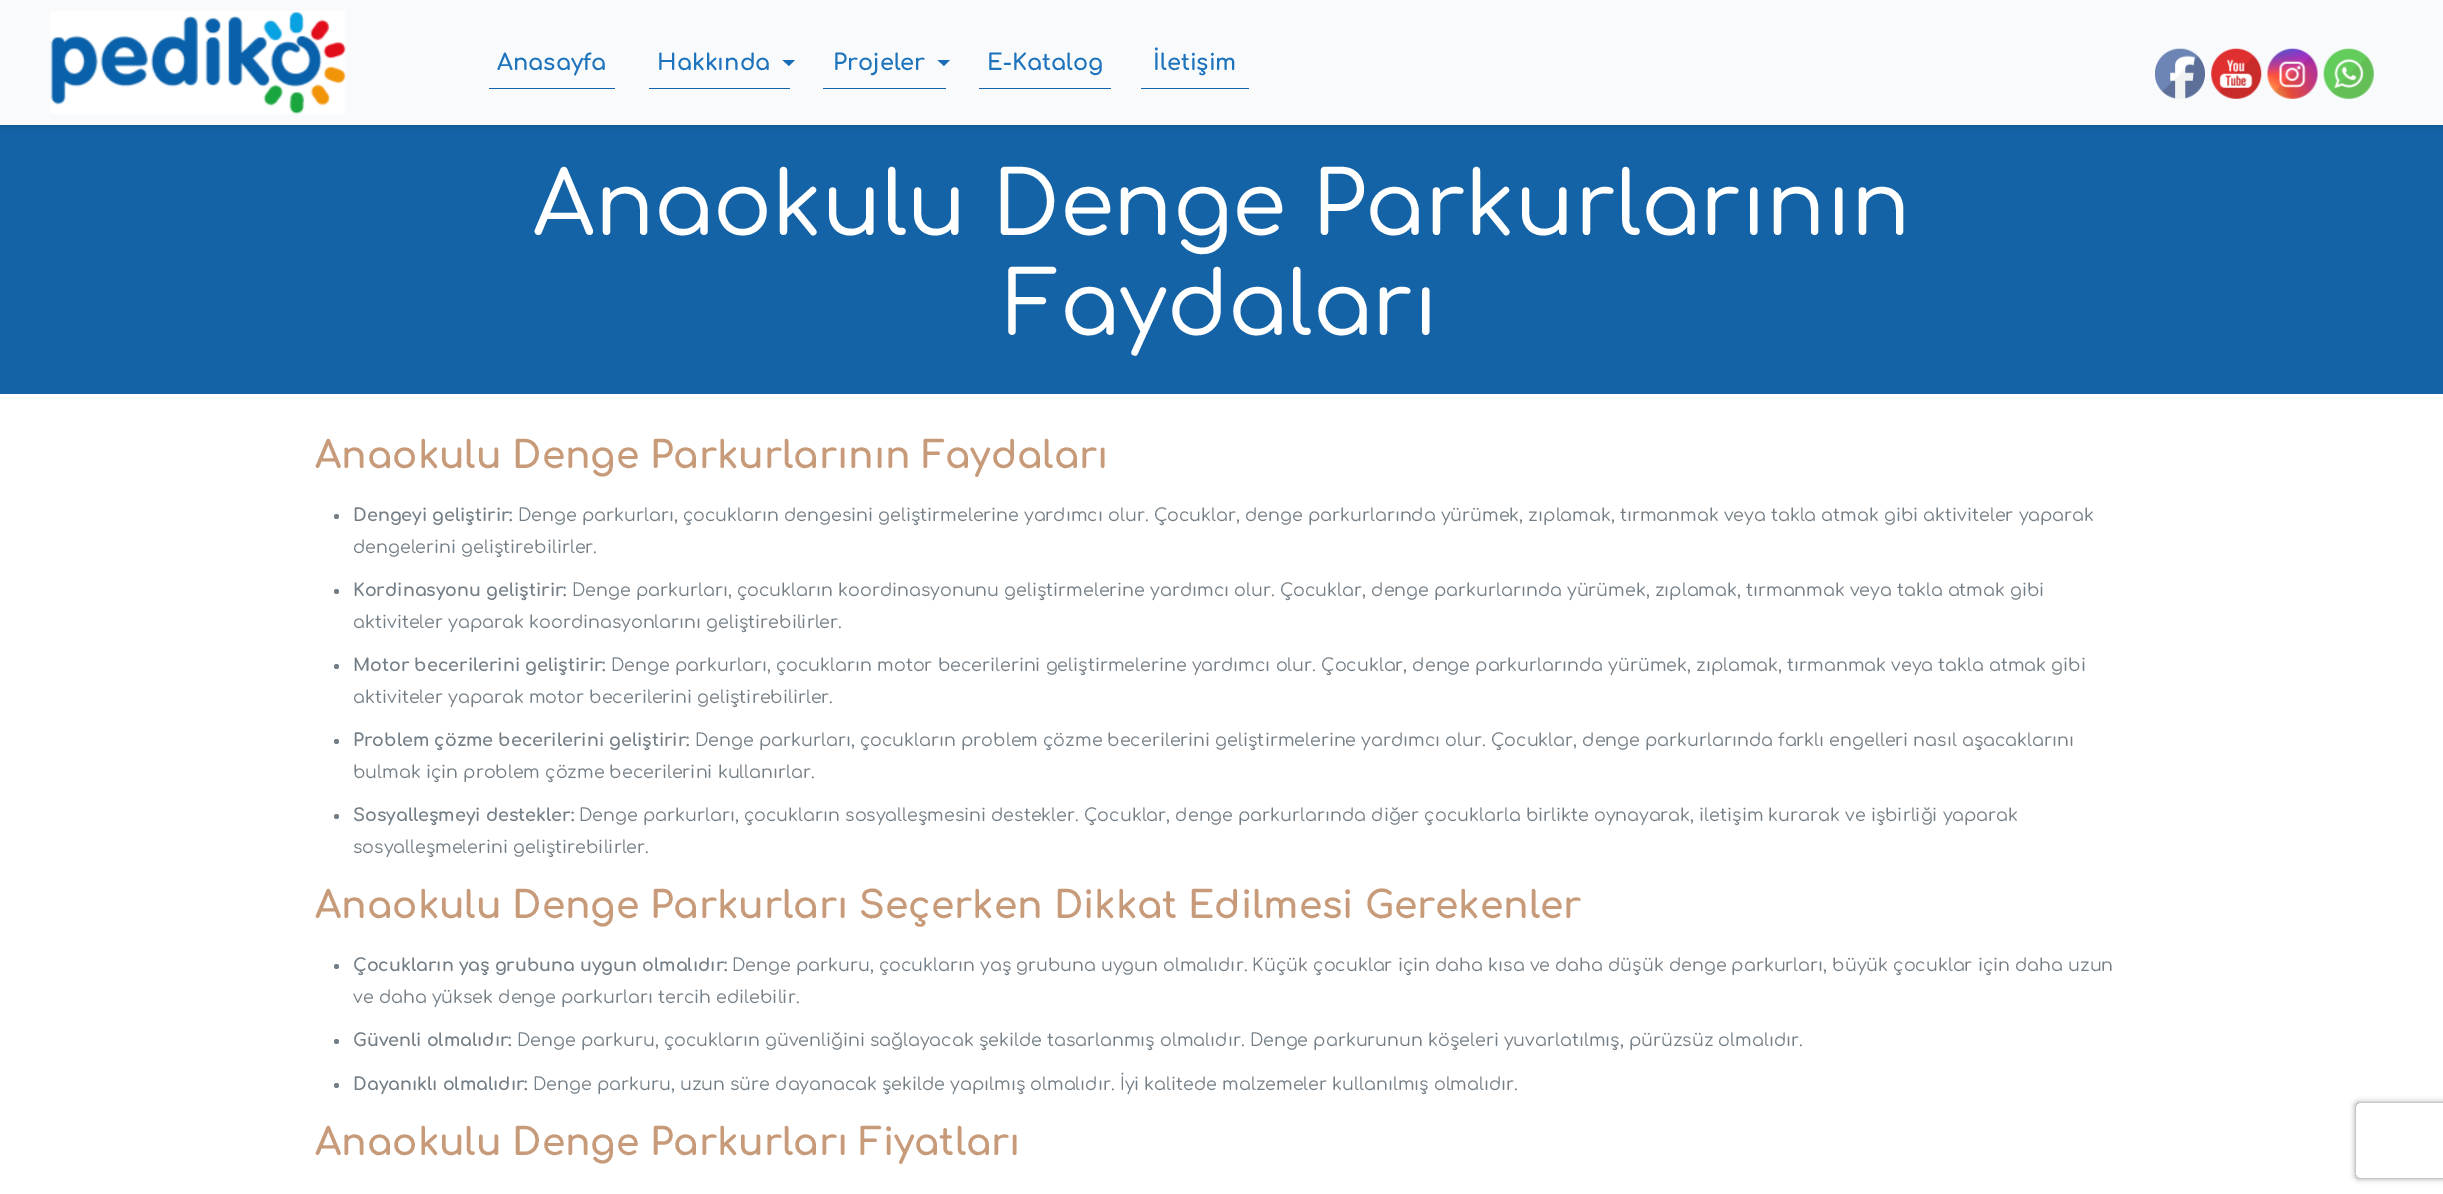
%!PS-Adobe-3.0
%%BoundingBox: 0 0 2443 1194
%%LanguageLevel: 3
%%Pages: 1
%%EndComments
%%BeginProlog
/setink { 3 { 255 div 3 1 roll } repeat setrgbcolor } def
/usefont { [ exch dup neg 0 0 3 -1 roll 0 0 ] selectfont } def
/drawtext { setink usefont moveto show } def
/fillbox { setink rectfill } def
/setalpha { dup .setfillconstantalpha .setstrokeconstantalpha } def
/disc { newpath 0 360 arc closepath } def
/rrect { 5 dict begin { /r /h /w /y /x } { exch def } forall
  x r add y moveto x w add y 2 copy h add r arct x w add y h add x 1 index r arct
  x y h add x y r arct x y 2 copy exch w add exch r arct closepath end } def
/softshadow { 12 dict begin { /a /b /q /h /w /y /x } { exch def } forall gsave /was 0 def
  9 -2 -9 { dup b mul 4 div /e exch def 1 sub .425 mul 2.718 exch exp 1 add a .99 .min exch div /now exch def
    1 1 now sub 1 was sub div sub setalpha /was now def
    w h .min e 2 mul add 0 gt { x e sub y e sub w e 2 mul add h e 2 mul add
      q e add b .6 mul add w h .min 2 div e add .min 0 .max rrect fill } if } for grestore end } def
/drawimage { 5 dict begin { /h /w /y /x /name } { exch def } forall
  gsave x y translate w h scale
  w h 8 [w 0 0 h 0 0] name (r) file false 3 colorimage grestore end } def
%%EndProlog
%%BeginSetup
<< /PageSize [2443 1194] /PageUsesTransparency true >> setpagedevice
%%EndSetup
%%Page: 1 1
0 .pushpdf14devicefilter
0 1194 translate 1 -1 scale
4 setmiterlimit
0 0 2443 1194 255 255 255 fillbox
0 125 2443 269 20 99 167 fillbox
1 3 5 setink
0 3 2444 125 0 3 0.1 softshadow
0 0 2443 125 248 250 252 fillbox
(assets/img1.rgb) 50 11 296 104 drawimage
(Anasayfa) 497 70 /Comfortaa-Bold 22.5 30 115 189 drawtext
489 88 126 1 20 99 167 fillbox
(Hakkında) 657 70 /Comfortaa-Bold 22.5 30 115 189 drawtext
26 108 180 setink
782.5 60 moveto 795 60 lineto 789 66 lineto closepath fill
649 88 141 1 20 99 167 fillbox
(Projeler) 833 70 /Comfortaa-Bold 22.5 30 115 189 drawtext
26 108 180 setink
937.5 60 moveto 950 60 lineto 944 66 lineto closepath fill
823 88 123 1 20 99 167 fillbox
(E-Katalog) 987 70 /Comfortaa-Bold 22.5 30 115 189 drawtext
979 88 132 1 20 99 167 fillbox
(İletişim) 1153 70 /Comfortaa-Bold 22.5 30 115 189 drawtext
1141 88 108 1 20 99 167 fillbox
(Anaokulu Denge Parkurlarının) 533 235 /Comfortaa-Medium 87.5 255 255 255 drawtext
(Faydaları) 1005 335 /Comfortaa-Medium 87.5 255 255 255 drawtext
(Anaokulu Denge Parkurlarının Faydaları) 315 468 /Comfortaa-Bold 37.5 199 155 122 drawtext
115 126 134 setink
336.5 516.5 2.5 disc fill
(Dengeyi geliştirir:) 353 521 /Comfortaa-Bold 17.5 115 126 134 drawtext
(Denge parkurları, çocukların dengesini geliştirmelerine yardımcı olur. Çocuklar, denge parkurlarında yürümek, zıplamak, tırmanmak veya takla atmak gibi aktiviteler yaparak) 518 521 /Comfortaa-Regular 17.5 115 126 134 drawtext
(dengelerini geliştirebilirler.) 353 553 /Comfortaa-Regular 17.5 115 126 134 drawtext
336.5 591.5 2.5 disc fill
(Kordinasyonu geliştirir:) 353 596 /Comfortaa-Bold 17.5 115 126 134 drawtext
(Denge parkurları, çocukların koordinasyonunu geliştirmelerine yardımcı olur. Çocuklar, denge parkurlarında yürümek, zıplamak, tırmanmak veya takla atmak gibi) 572 596 /Comfortaa-Regular 17.5 115 126 134 drawtext
(aktiviteler yaparak koordinasyonlarını geliştirebilirler.) 353 628 /Comfortaa-Regular 17.5 115 126 134 drawtext
336.5 666.5 2.5 disc fill
(Motor becerilerini geliştirir:) 353 671 /Comfortaa-Bold 17.5 115 126 134 drawtext
(Denge parkurları, çocukların motor becerilerini geliştirmelerine yardımcı olur. Çocuklar, denge parkurlarında yürümek, zıplamak, tırmanmak veya takla atmak gibi) 611 671 /Comfortaa-Regular 17.5 115 126 134 drawtext
(aktiviteler yaparak motor becerilerini geliştirebilirler.) 353 703 /Comfortaa-Regular 17.5 115 126 134 drawtext
336.5 741.5 2.5 disc fill
(Problem çözme becerilerini geliştirir:) 353 746 /Comfortaa-Bold 17.5 115 126 134 drawtext
(Denge parkurları, çocukların problem çözme becerilerini geliştirmelerine yardımcı olur. Çocuklar, denge parkurlarında farklı engelleri nasıl aşacaklarını) 695 746 /Comfortaa-Regular 17.5 115 126 134 drawtext
(bulmak için problem çözme becerilerini kullanırlar.) 353 778 /Comfortaa-Regular 17.5 115 126 134 drawtext
336.5 816.5 2.5 disc fill
(Sosyalleşmeyi destekler:) 353 821 /Comfortaa-Bold 17.5 115 126 134 drawtext
(Denge parkurları, çocukların sosyalleşmesini destekler. Çocuklar, denge parkurlarında diğer çocuklarla birlikte oynayarak, iletişim kurarak ve işbirliği yaparak) 579 821 /Comfortaa-Regular 17.5 115 126 134 drawtext
(sosyalleşmelerini geliştirebilirler.) 353 853 /Comfortaa-Regular 17.5 115 126 134 drawtext
(Anaokulu Denge Parkurları Seçerken Dikkat Edilmesi Gerekenler) 315 918 /Comfortaa-Bold 37.5 199 155 122 drawtext
115 126 134 setink
336.5 966.5 2.5 disc fill
(Çocukların yaş grubuna uygun olmalıdır:) 353 971 /Comfortaa-Bold 17.5 115 126 134 drawtext
(Denge parkuru, çocukların yaş grubuna uygun olmalıdır. Küçük çocuklar için daha kısa ve daha düşük denge parkurları, büyük çocuklar için daha uzun) 732 971 /Comfortaa-Regular 17.5 115 126 134 drawtext
(ve daha yüksek denge parkurları tercih edilebilir.) 353 1003 /Comfortaa-Regular 17.5 115 126 134 drawtext
336.5 1041.5 2.5 disc fill
(Güvenli olmalıdır:) 353 1046 /Comfortaa-Bold 17.5 115 126 134 drawtext
(Denge parkuru, çocukların güvenliğini sağlayacak şekilde tasarlanmış olmalıdır. Denge parkurunun köşeleri yuvarlatılmış, pürüzsüz olmalıdır.) 517 1046 /Comfortaa-Regular 17.5 115 126 134 drawtext
336.5 1085.5 2.5 disc fill
(Dayanıklı olmalıdır:) 353 1090 /Comfortaa-Bold 17.5 115 126 134 drawtext
(Denge parkuru, uzun süre dayanacak şekilde yapılmış olmalıdır. İyi kalitede malzemeler kullanılmış olmalıdır.) 533 1090 /Comfortaa-Regular 17.5 115 126 134 drawtext
(Anaokulu Denge Parkurları Fiyatları) 315 1155 /Comfortaa-Bold 37.5 199 155 122 drawtext
(assets/img2.rgb) 2155 48 50 51 drawimage
(assets/img3.rgb) 2211 48 51 51 drawimage
(assets/img4.rgb) 2267 48 51 51 drawimage
(assets/img5.rgb) 2323 48 51 51 drawimage
gsave
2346 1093 moveto 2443 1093 lineto 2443 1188 lineto 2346 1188 lineto closepath 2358.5 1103 moveto 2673.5 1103 lineto 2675 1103 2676 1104 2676 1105.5 curveto 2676 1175.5 lineto 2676 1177 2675 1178 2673.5 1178 curveto 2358.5 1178 lineto 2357 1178 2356 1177 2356 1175.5 curveto 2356 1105.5 lineto 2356 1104 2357 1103 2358.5 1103 curveto closepath eoclip newpath
128 128 128 setink
2356 1103 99 75 2.5 3 1 softshadow
grestore
.poppdf14devicefilter showpage
%%EOF
